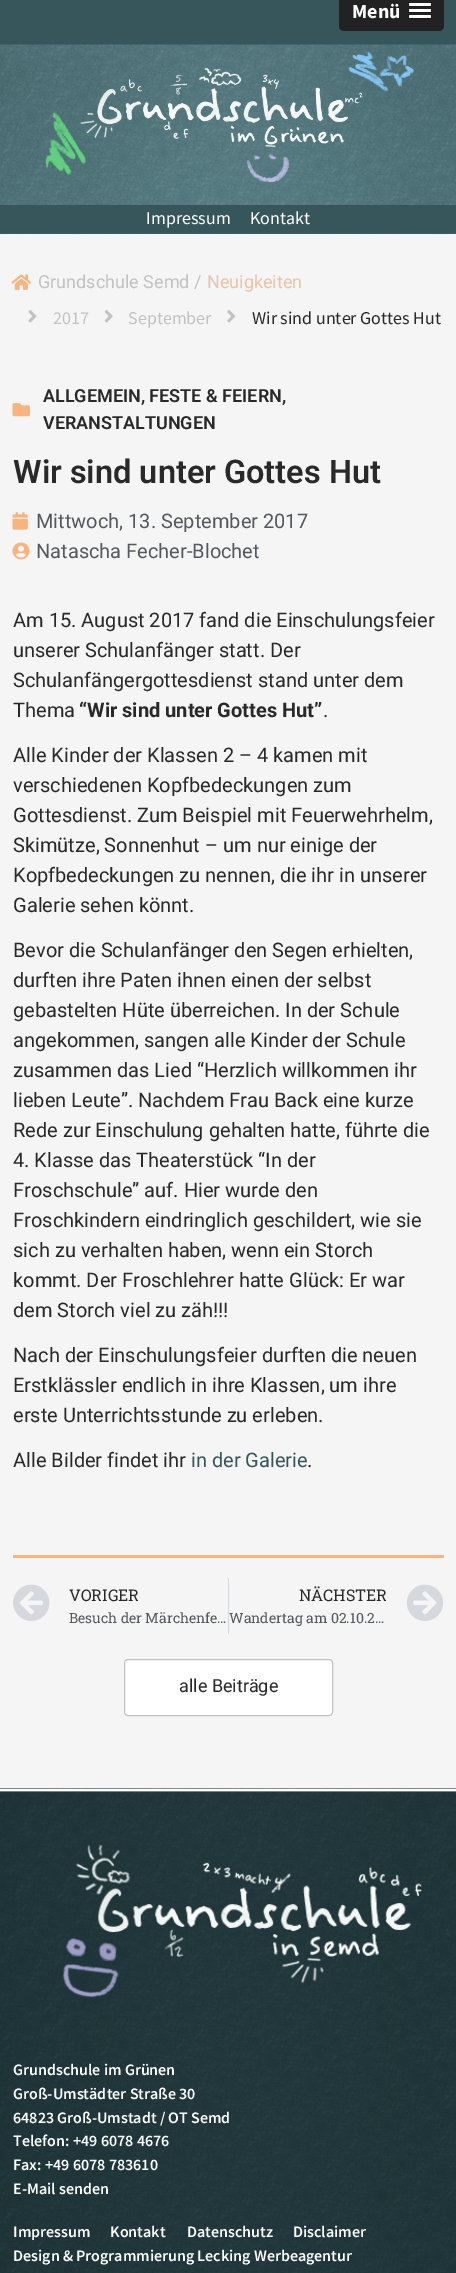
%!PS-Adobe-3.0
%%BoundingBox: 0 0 456 2273
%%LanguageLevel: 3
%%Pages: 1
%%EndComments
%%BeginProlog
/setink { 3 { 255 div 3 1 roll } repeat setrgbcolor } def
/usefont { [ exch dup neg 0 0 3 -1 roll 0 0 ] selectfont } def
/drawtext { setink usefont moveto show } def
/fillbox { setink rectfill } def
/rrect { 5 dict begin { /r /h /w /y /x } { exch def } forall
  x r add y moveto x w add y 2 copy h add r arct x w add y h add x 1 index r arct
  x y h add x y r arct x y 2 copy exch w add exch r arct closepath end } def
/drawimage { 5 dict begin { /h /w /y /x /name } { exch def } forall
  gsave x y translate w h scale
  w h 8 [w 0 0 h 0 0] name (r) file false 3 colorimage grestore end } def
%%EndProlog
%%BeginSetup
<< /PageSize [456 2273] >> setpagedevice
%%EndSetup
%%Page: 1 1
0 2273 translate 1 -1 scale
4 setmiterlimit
0 0 456 2273 245 245 245 fillbox
0 0 456 45 54 86 92 fillbox
34 34 34 setink
339 -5 105 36 5 rrect fill
(Menü) 352 18 /SourceSansPro-Bold 20 255 255 255 drawtext
26 26 26 setink
409 4.5 moveto 407.5 7.5 413 7 413.5 7 curveto 426.5 7 lineto 427 7 432.5 7.5 431 4.5 curveto 430 5 410 5 409 4.5 curveto closepath fill
255 255 255 setink
409 3 22 3 1.5 rrect fill
26 26 26 setink
409 11 moveto 408 13.5 413 13 413.5 13 curveto 426.5 13 lineto 427 13 432 13.5 431 11 curveto 430 11.5 410 11.5 409 11 curveto closepath fill
255 255 255 setink
409 9 22 3 1.5 rrect fill
26 26 26 setink
409 17 moveto 408.5 19.5 413 19 413.5 19 curveto 426.5 19 lineto 427 19 431.5 19.5 431 17 curveto 430 18 410 18 409 17 curveto closepath fill
255 255 255 setink
409 15 22 3 1.5 rrect fill
0 233 456 1 54 86 92 fillbox
(assets/img1.rgb) 0 44 456 190 drawimage
(assets/img2.rgb) 45 51 369 132 drawimage
0 205 456 28 54 86 92 fillbox
(Impressum) 146 224 /SourceSansPro-Regular 18 255 255 255 drawtext
(Kontakt) 250 224 /SourceSansPro-Regular 18 255 255 255 drawtext
(assets/img3.rgb) 11 274 21 16 drawimage
(Grundschule Semd /) 38 288 /Roboto-Regular 18 194 194 194 drawtext
(Neuigkeiten) 207 288 /Roboto-Regular 18 234 196 166 drawtext
(assets/img4.rgb) 28 310 9 13 drawimage
(2017) 53 324 /SourceSansPro-Regular 18 194 194 194 drawtext
(assets/img5.rgb) 104 310 9 13 drawimage
(September) 128 324 /SourceSansPro-Regular 18 194 194 194 drawtext
(assets/img6.rgb) 227 310 9 13 drawimage
(Wir sind unter Gottes Hut) 252 324 /SourceSansPro-Regular 18 41 41 41 drawtext
(assets/img7.rgb) 12 403 18 14 drawimage
(ALLGEMEIN, FESTE & FEIERN,) 43 402 /Roboto-SemiBold 18 41 41 41 drawtext
(VERANSTALTUNGEN) 43 429 /Roboto-SemiBold 18 41 41 41 drawtext
(Wir sind unter Gottes Hut) 13 483 /Roboto-SemiBold 32.5 41 41 41 drawtext
(assets/img8.rgb) 12 512 16 18 drawimage
(Mittwoch, 13. September 2017) 36 528 /Roboto-Regular 20 84 89 95 drawtext
(assets/img9.rgb) 12 542 18 18 drawimage
(Natascha Fecher-Blochet) 36 558 /Roboto-Regular 20 84 89 95 drawtext
(Am 15. August 2017 fand die Einschulungsfeier) 13 627 /Roboto-Regular 20 41 41 41 drawtext
(unserer Schulanfänger statt. Der) 13 657 /Roboto-Regular 20 41 41 41 drawtext
(Schulanfängergottesdienst stand unter dem) 13 687 /Roboto-Regular 20 41 41 41 drawtext
(Thema) 13 717 /Roboto-Regular 20 41 41 41 drawtext
(“Wir sind unter Gottes Hut”) 79 717 /Roboto-Bold 20 41 41 41 drawtext
(.) 323 717 /Roboto-Regular 20 41 41 41 drawtext
(Alle Kinder der Klassen 2 – 4 kamen mit) 13 762 /Roboto-Regular 20 41 41 41 drawtext
(verschiedenen Kopfbedeckungen zum) 13 792 /Roboto-Regular 20 41 41 41 drawtext
(Gottesdienst. Zum Beispiel mit Feuerwehrhelm,) 13 822 /Roboto-Regular 20 41 41 41 drawtext
(Skimütze, Sonnenhut – um nur einige der) 13 852 /Roboto-Regular 20 41 41 41 drawtext
(Kopfbedeckungen zu nennen, die ihr in unserer) 13 882 /Roboto-Regular 20 41 41 41 drawtext
(Galerie sehen könnt.) 13 912 /Roboto-Regular 20 41 41 41 drawtext
(Bevor die Schulanfänger den Segen erhielten,) 13 957 /Roboto-Regular 20 41 41 41 drawtext
(durften ihre Paten ihnen einen der selbst) 13 987 /Roboto-Regular 20 41 41 41 drawtext
(gebastelten Hüte überreichen. In der Schule) 13 1017 /Roboto-Regular 20 41 41 41 drawtext
(angekommen, sangen alle Kinder der Schule) 13 1047 /Roboto-Regular 20 41 41 41 drawtext
(zusammen das Lied “Herzlich willkommen ihr) 13 1077 /Roboto-Regular 20 41 41 41 drawtext
(lieben Leute”. Nachdem Frau Back eine kurze) 13 1107 /Roboto-Regular 20 41 41 41 drawtext
(Rede zur Einschulung gehalten hatte, führte die) 13 1137 /Roboto-Regular 20 41 41 41 drawtext
(4. Klasse das Theaterstück “In der) 13 1167 /Roboto-Regular 20 41 41 41 drawtext
(Froschschule” auf. Hier wurde den) 13 1197 /Roboto-Regular 20 41 41 41 drawtext
(Froschkindern eindringlich geschildert, wie sie) 13 1227 /Roboto-Regular 20 41 41 41 drawtext
(sich zu verhalten haben, wenn ein Storch) 13 1257 /Roboto-Regular 20 41 41 41 drawtext
(kommt. Der Froschlehrer hatte Glück: Er war) 13 1287 /Roboto-Regular 20 41 41 41 drawtext
(dem Storch viel zu zäh!!!) 13 1317 /Roboto-Regular 20 41 41 41 drawtext
(Nach der Einschulungsfeier durften die neuen) 13 1362 /Roboto-Regular 20 41 41 41 drawtext
(Erstklässler endlich in ihre Klassen, um ihre) 13 1392 /Roboto-Regular 20 41 41 41 drawtext
(erste Unterrichtsstunde zu erleben.) 13 1422 /Roboto-Regular 20 41 41 41 drawtext
(Alle Bilder findet ihr) 13 1467 /Roboto-Regular 20 41 41 41 drawtext
(in der Galerie) 191 1467 /Roboto-Regular 20 54 86 92 drawtext
(.) 307 1467 /Roboto-Regular 20 41 41 41 drawtext
13 1555 431 3 249 180 125 fillbox
(assets/img10.rgb) 13 1584 37 37 drawimage
(VORIGER) 69 1601 /RobotoSlab-Regular 16 41 41 41 drawtext
(Besuch der Märchenfe…) 69 1623 /RobotoSlab-Regular 14 84 89 95 drawtext
228 1578 1 56 213 216 220 fillbox
(NÄCHSTER) 299 1601 /RobotoSlab-Regular 16 41 41 41 drawtext
(Wandertag am 02.10.2…) 229 1623 /RobotoSlab-Regular 14 84 89 95 drawtext
(assets/img11.rgb) 406 1584 38 37 drawimage
255 255 255 setink
124.5 1659.5 208 56 3.5 rrect gsave fill grestore
194 194 194 setink
stroke
(alle Beiträge) 179 1692 /Roboto-Regular 18 41 41 41 drawtext
(assets/img12.rgb) 0 1788 456 485 drawimage
0 1789 456 2 255 255 255 fillbox
0 1791 456 1 128 128 128 fillbox
(assets/img13.rgb) 62 1844 360 154 drawimage
(Grundschule im Grünen) 13 2075 /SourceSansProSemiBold-SemiBold 16 255 255 255 drawtext
(Groß-Umstädter Straße 30) 13 2099 /SourceSansProSemiBold-SemiBold 16 255 255 255 drawtext
(64823 Groß-Umstadt / OT Semd) 13 2123 /SourceSansProSemiBold-SemiBold 16 255 255 255 drawtext
(Telefon: +49 6078 4676) 13 2146 /SourceSansProSemiBold-SemiBold 16 255 255 255 drawtext
(Fax: +49 6078 783610) 13 2170 /SourceSansProSemiBold-SemiBold 16 255 255 255 drawtext
(E-Mail senden) 13 2194 /SourceSansProSemiBold-SemiBold 16 255 255 255 drawtext
(Impressum) 13 2237 /SourceSansProSemiBold-SemiBold 16 255 255 255 drawtext
(Kontakt) 110 2237 /SourceSansProSemiBold-SemiBold 16 255 255 255 drawtext
(Datenschutz) 187 2237 /SourceSansProSemiBold-SemiBold 16 255 255 255 drawtext
(Disclaimer) 293 2237 /SourceSansProSemiBold-SemiBold 16 255 255 255 drawtext
(Design & Programmierung Lecking Werbeagentur) 13 2261 /SourceSansProSemiBold-SemiBold 16 255 255 255 drawtext
showpage
%%EOF
